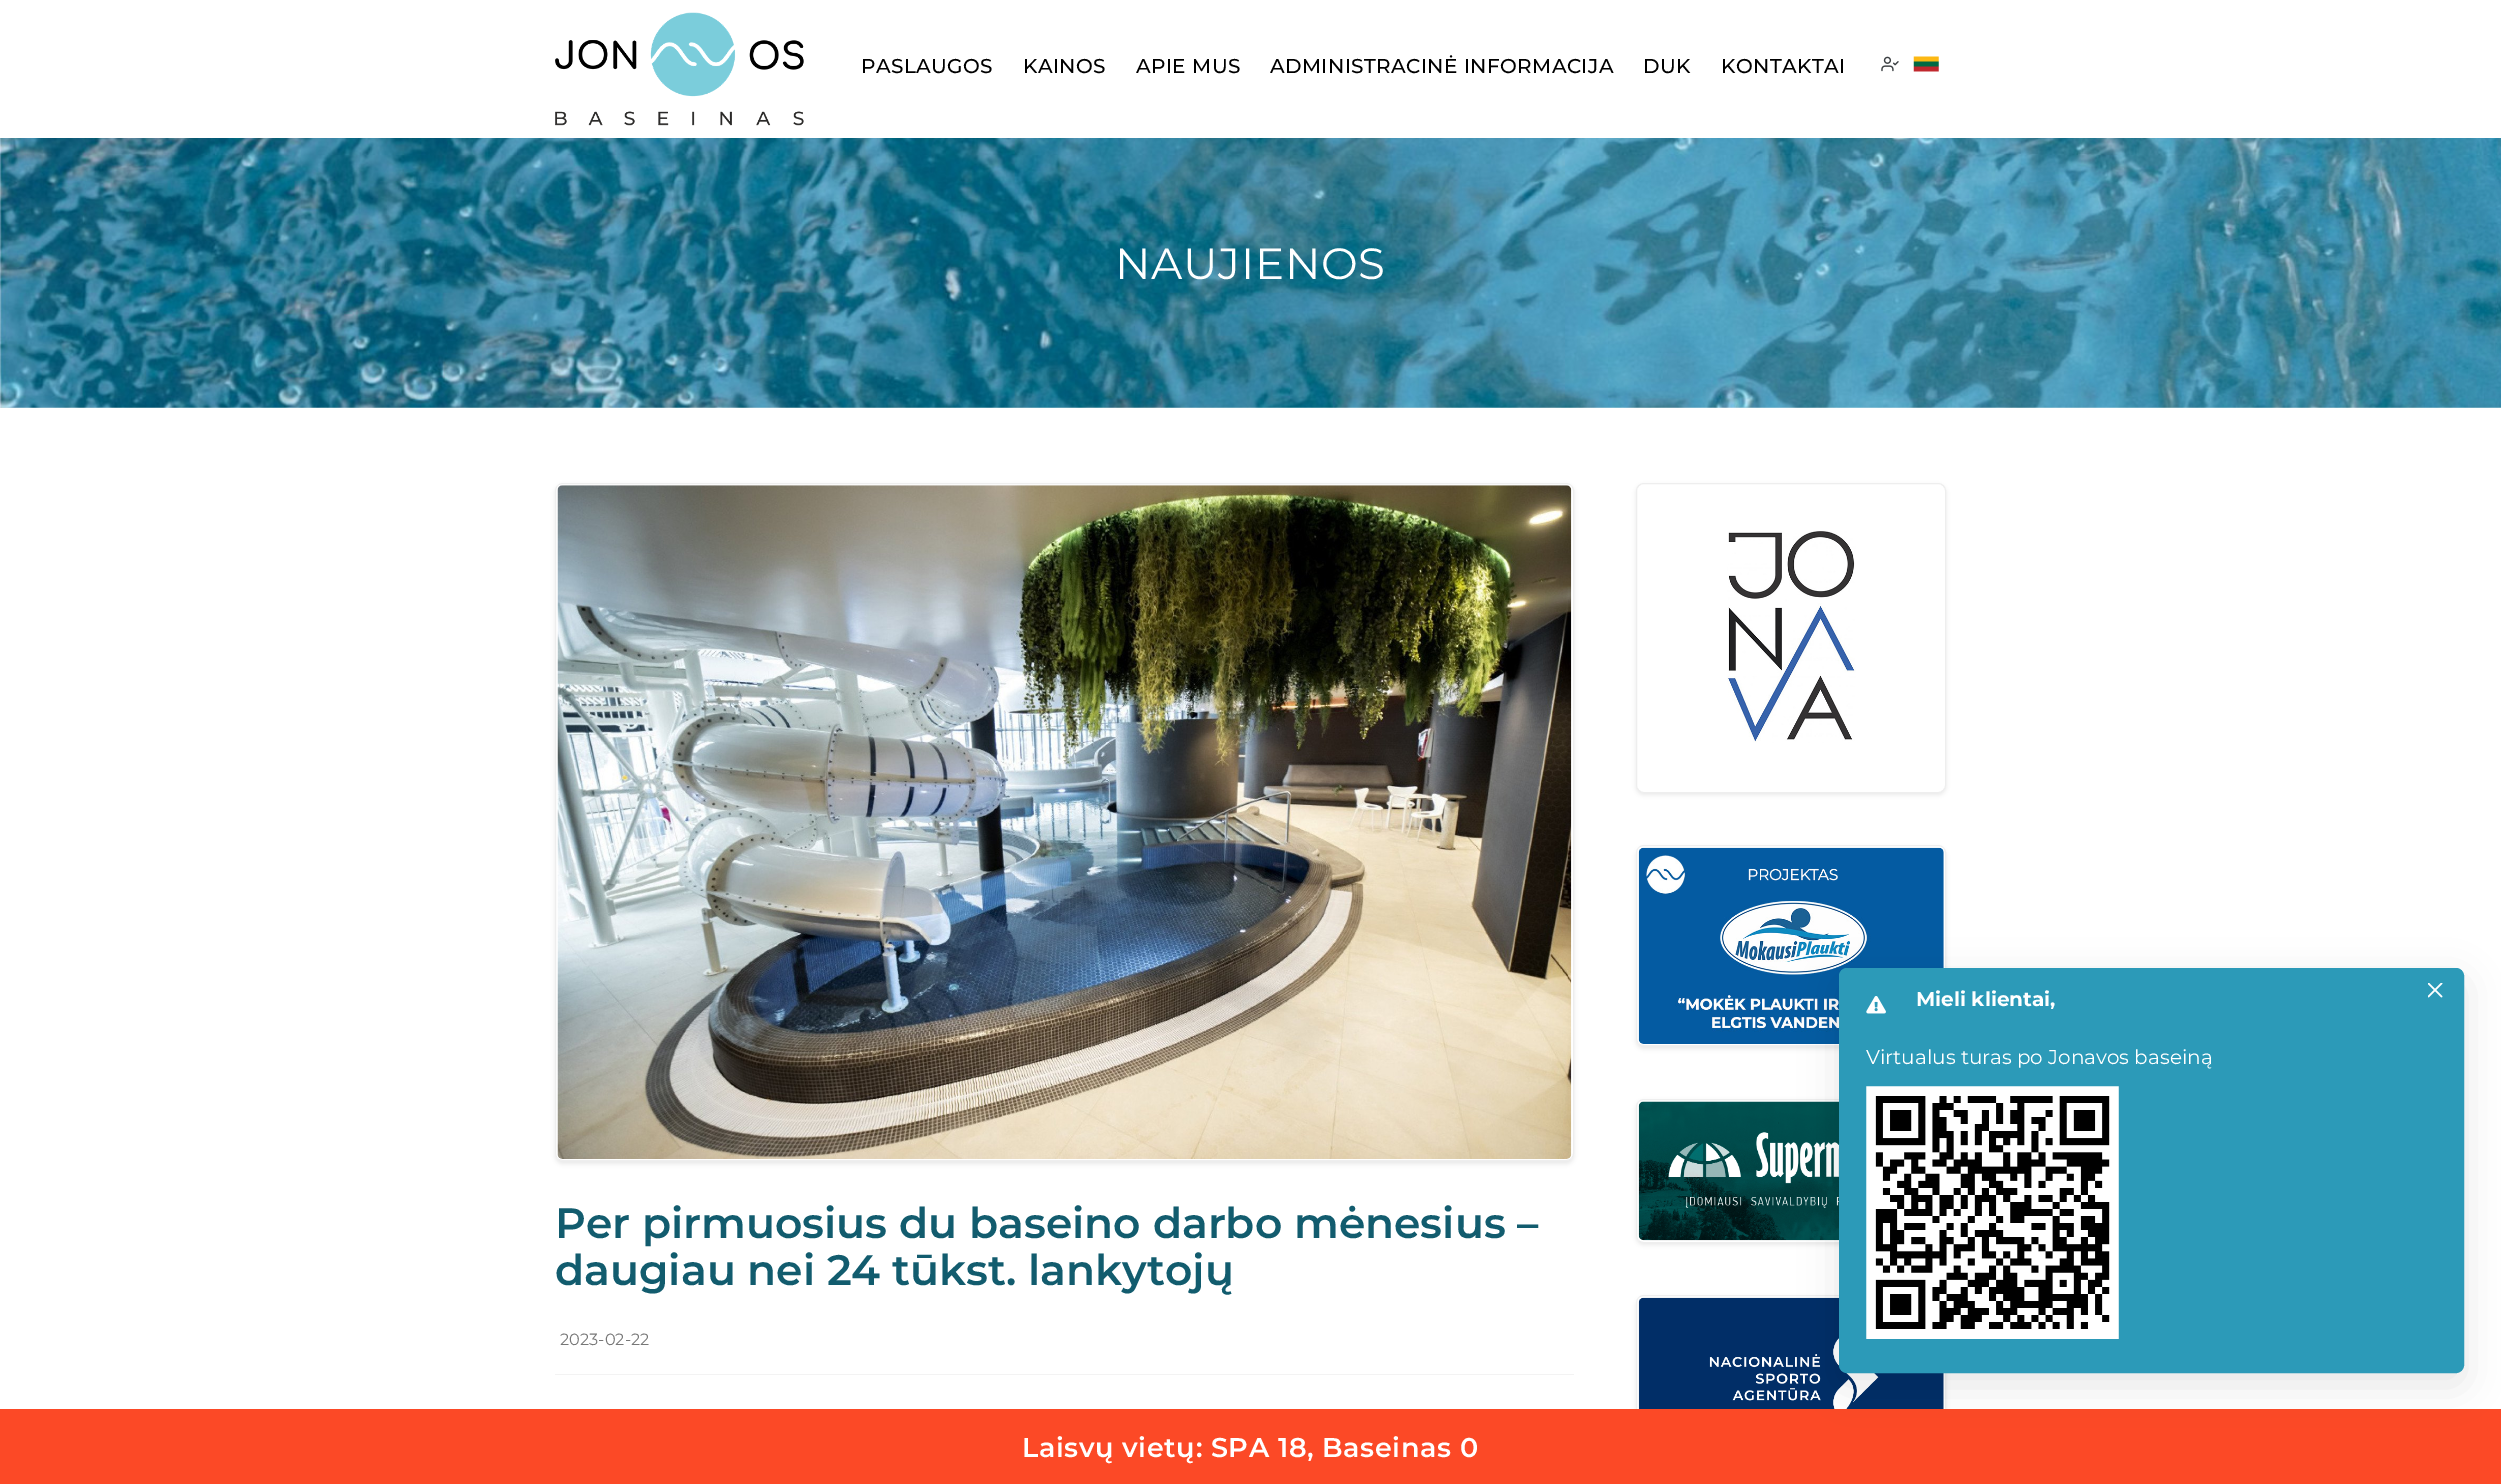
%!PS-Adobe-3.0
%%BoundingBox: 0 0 2501 1484
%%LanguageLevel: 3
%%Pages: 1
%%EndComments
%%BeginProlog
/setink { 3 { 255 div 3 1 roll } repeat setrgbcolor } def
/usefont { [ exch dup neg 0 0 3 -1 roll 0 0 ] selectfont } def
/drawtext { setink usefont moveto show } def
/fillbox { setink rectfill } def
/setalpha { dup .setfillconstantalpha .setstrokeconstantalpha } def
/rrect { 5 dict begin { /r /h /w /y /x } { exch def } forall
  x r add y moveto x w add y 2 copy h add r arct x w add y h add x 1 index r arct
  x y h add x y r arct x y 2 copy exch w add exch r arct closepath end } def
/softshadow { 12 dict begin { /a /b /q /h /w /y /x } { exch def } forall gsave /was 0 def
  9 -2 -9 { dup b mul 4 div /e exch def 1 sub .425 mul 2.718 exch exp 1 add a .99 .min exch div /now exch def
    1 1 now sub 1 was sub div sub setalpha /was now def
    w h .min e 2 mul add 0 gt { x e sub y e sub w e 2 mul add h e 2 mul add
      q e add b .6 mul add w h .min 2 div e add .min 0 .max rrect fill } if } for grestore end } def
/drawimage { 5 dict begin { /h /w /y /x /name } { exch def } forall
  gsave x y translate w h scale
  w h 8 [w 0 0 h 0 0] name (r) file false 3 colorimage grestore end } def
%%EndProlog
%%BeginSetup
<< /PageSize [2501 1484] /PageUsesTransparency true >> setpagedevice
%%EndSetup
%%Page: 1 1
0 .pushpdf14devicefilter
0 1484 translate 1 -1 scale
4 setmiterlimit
0 0 2501 1484 255 255 255 fillbox
(assets/img1.rgb) 555 12 249 114 drawimage
/Montserrat-Medium 20 usefont
0 0 0 setink
861 73 moveto 0.4 0 (PASLAUGOS) ashow
1023 73 moveto 0.4 0 (KAINOS) ashow
1136 73 moveto 0.4 0 (APIE MUS) ashow
1270 73 moveto 0.4 0 (ADMINISTRACINĖ INFORMACIJA) ashow
1643 73 moveto 0.4 0 (DUK) ashow
1721 73 moveto 0.4 0 (KONTAKTAI) ashow
(assets/img2.rgb) 1881 56 18 16 drawimage
(assets/img3.rgb) 1913 56 26 16 drawimage
(assets/img4.rgb) 0 138 2501 270 drawimage
/Montserrat-Regular 43.75 usefont
255 255 255 setink
1115 279 moveto 0.6 0 (NAUJIENOS) ashow
0 0 0 setink
555 485 1019 679 8 2 0.08 softshadow
255 255 255 setink
555.5 483.5 1018 677 7.5 rrect gsave fill grestore
238 238 238 setink
stroke
(assets/img5.rgb) 557 485 1015 674 drawimage
(Per pirmuosius du baseino darbo mėnesius –) 555 1238 /Montserrat-SemiBold 42.5 18 92 110 drawtext
(daugiau nei 24 tūkst. lankytojų) 555 1285 /Montserrat-SemiBold 42.5 18 92 110 drawtext
555 1374 1019 1 243 243 243 fillbox
(2023-02-22) 560 1345 /Montserrat-Regular 16.25 119 119 119 drawtext
0 0 0 setink
1636 485 310 310 8 2 0.08 softshadow
255 255 255 setink
1636.5 483.5 309 309 7.5 rrect gsave fill grestore
238 238 238 setink
stroke
(assets/img6.rgb) 1727 531 129 212 drawimage
0 0 0 setink
1636 848 310 201 8 2 0.08 softshadow
255 255 255 setink
1636.5 845.5 309 200 7.5 rrect gsave fill grestore
238 238 238 setink
stroke
(assets/img7.rgb) 1638 847 306 197 drawimage
0 0 0 setink
1636 1101 310 144 8 2 0.08 softshadow
255 255 255 setink
1636.5 1099.5 309 143 7.5 rrect gsave fill grestore
238 238 238 setink
stroke
(assets/img8.rgb) 1638 1101 201 140 drawimage
0 0 0 setink
1636 1298 310 163 8 2 0.08 softshadow
255 255 255 setink
1636.5 1295.5 309 163 7.5 rrect gsave fill grestore
238 238 238 setink
stroke
(assets/img9.rgb) 1638 1297 306 112 drawimage
0 1409 2501 75 252 73 38 fillbox
/Montserrat-SemiBold 27.1 usefont
255 255 255 setink
1022 1457 moveto 0.6 0 (Laisvų vietų: SPA 18, Baseinas 0) ashow
0 0 0 setink
1839 980 625 405 8 19 0.1 softshadow
44 154 184 setink
1839.5 968.5 624 404 7.5 rrect gsave fill grestore
stroke
(assets/img10.rgb) 1866 996 20 18 drawimage
(Mieli klientai,) 1916 1006 /Montserrat-Bold 20 255 255 255 drawtext
(assets/img11.rgb) 2428 983 15 15 drawimage
(Virtualus turas po Jonavos baseiną) 1866 1064 /Montserrat-Regular 20 255 255 255 drawtext
(assets/img12.rgb) 1866 1086 253 253 drawimage
.poppdf14devicefilter showpage
%%EOF
